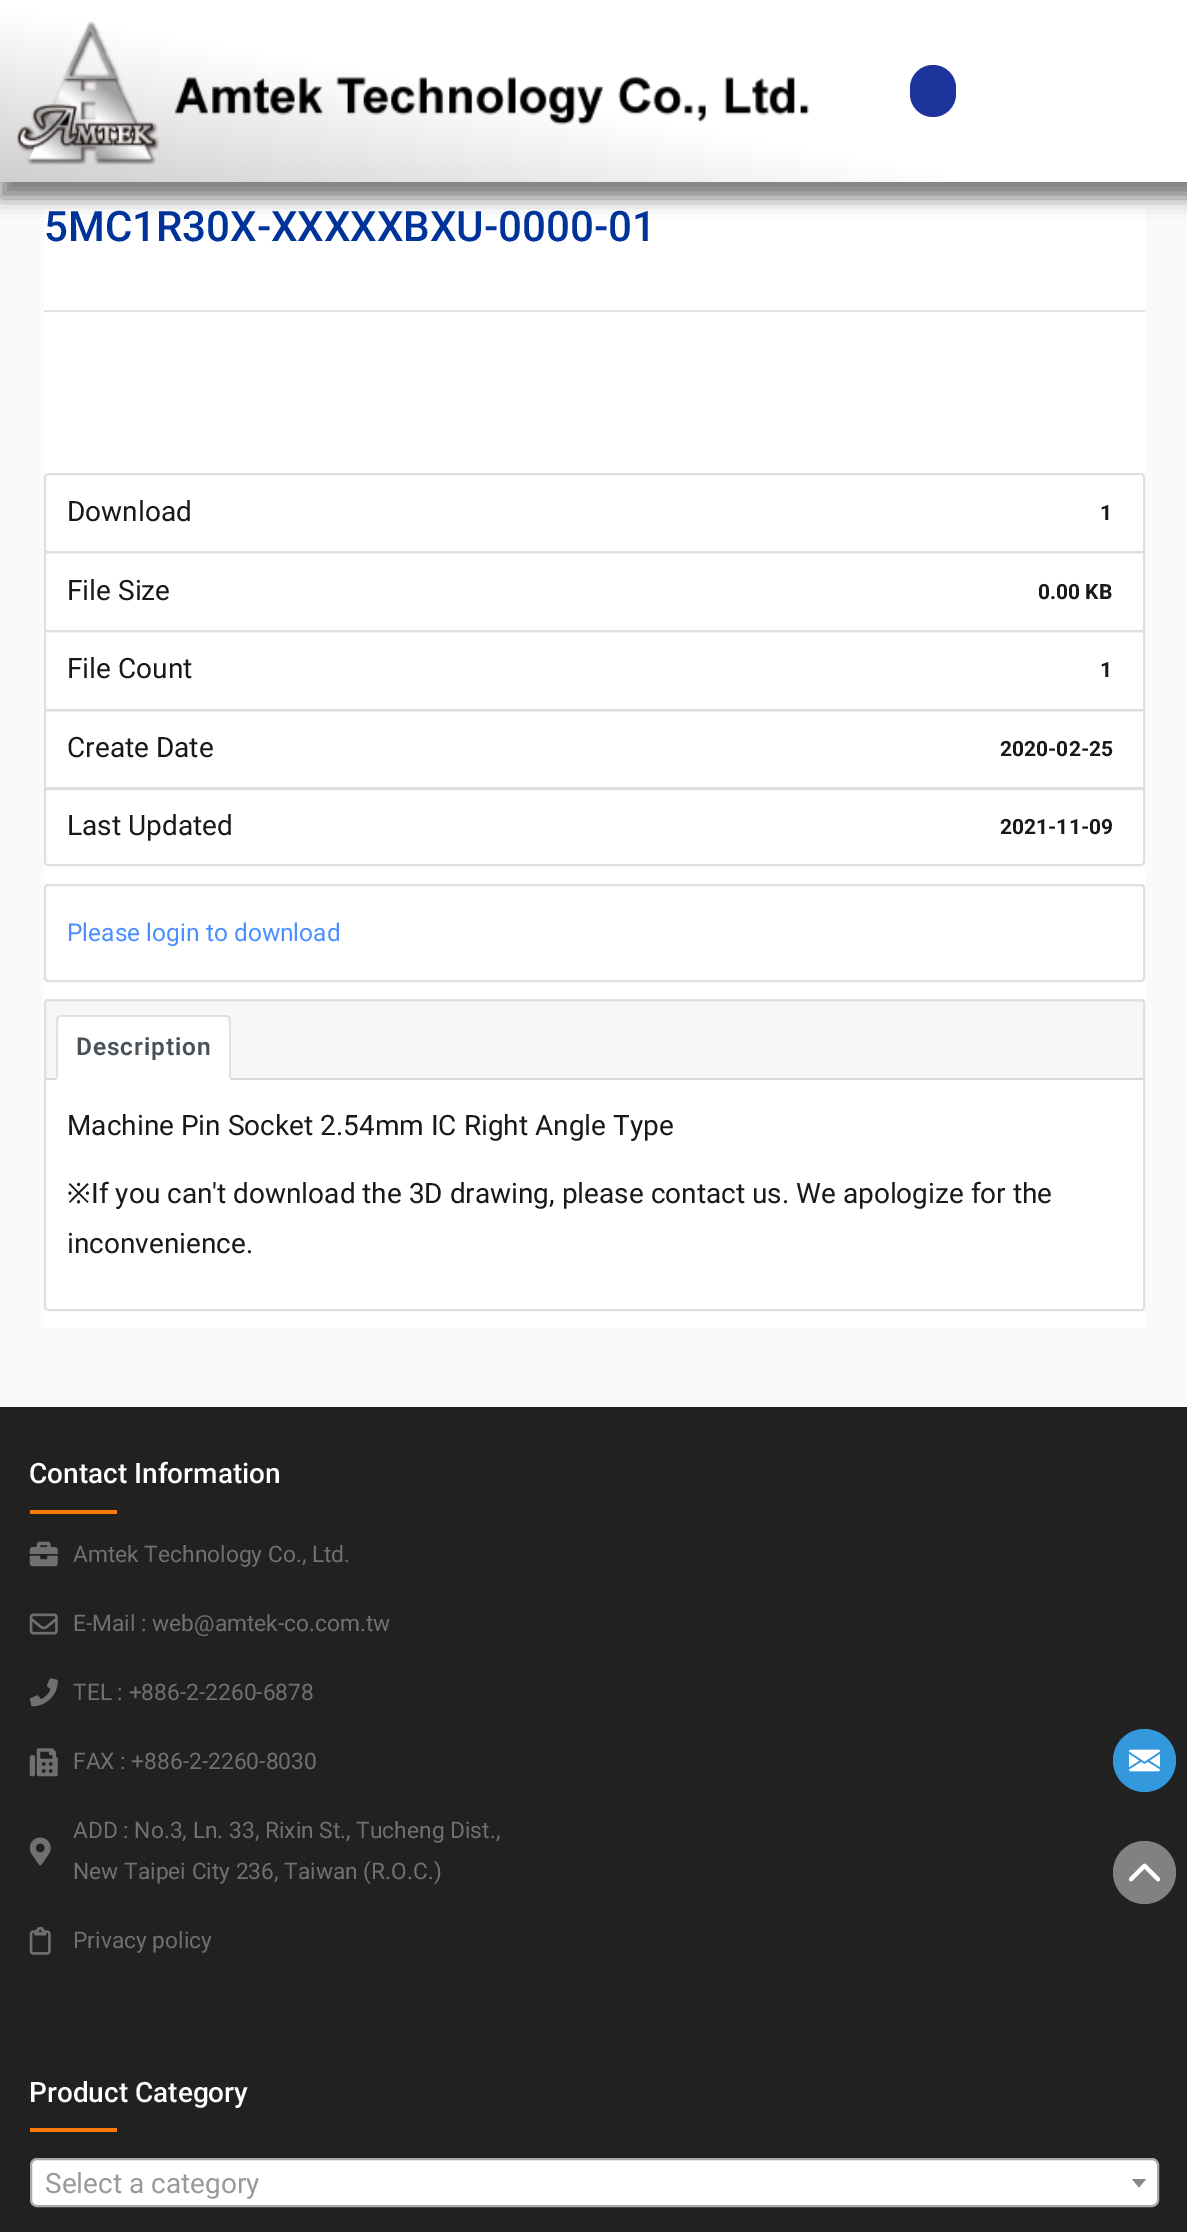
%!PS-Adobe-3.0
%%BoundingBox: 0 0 1187 2232
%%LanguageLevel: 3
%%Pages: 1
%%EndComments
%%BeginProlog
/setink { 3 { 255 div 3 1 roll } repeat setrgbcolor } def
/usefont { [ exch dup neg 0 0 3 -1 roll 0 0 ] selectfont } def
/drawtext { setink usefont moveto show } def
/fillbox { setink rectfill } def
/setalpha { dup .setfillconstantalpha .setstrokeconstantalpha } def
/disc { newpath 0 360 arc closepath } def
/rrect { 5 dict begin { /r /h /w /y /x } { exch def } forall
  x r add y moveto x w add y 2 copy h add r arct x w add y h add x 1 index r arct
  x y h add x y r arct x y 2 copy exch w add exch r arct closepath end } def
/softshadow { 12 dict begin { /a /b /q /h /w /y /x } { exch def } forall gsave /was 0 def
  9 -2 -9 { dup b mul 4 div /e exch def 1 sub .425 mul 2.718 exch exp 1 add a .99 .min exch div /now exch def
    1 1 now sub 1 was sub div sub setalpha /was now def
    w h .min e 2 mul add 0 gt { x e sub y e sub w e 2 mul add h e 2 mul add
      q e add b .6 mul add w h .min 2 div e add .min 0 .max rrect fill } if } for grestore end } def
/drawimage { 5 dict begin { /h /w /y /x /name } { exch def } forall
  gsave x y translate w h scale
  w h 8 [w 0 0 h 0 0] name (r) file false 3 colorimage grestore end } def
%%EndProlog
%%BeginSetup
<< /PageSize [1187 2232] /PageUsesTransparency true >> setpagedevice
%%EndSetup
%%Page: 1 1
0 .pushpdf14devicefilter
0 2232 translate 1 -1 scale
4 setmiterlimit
0 0 1187 2232 250 250 250 fillbox
44 207 1101 1121 255 255 255 fillbox
0 0 0 setink
0 2 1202 196 0 9 0.5 softshadow
gsave 0 0 moveto 1187 0 lineto 1187 182 lineto 0 182 lineto closepath clip newpath
<< /ShadingType 2 /ColorSpace /DeviceRGB /Coords [628 -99 561 281] /Extend [true true] /Function << /FunctionType 3 /Domain [0 1] /Functions [<< /FunctionType 2 /Domain [0 1] /C0 [1 1 1] /C1 [1 1 1] /N 1 >> << /FunctionType 2 /Domain [0 1] /C0 [1 1 1] /C1 [0.808 0.808 0.808] /N 1 >>] /Bounds [0.55] /Encode [0 1 0 1] >> >> shfill grestore
(assets/img1.rgb) 17 21 792 144 drawimage
27 51 154 setink
910 65 46 52 23 rrect fill
(5MC1R30X-XXXXXBXU-0000-01) 44 241 /Roboto-Medium 42 0 51 154 drawtext
44 310 1101 2 226 226 226 fillbox
223 223 223 setink
2 setlinewidth
48 474 moveto 1141 474 lineto 1142.5 474 1144 475.5 1144 477 curveto 1144 552 lineto 45 552 lineto 45 477 lineto 45 475.5 46.5 474 48 474 curveto closepath stroke
(Download) 67 521 /Roboto-Regular 28 25 25 25 drawtext
(1) 1100 520 /Roboto-Bold 21 25 25 25 drawtext
223 223 223 setink
45 552 1099 79 rectstroke
(File Size) 67 600 /Roboto-Regular 28 25 25 25 drawtext
(0.00 KB) 1038 599 /Roboto-Bold 21 25 25 25 drawtext
223 223 223 setink
45 631 1099 79 rectstroke
(File Count) 67 678 /Roboto-Regular 28 25 25 25 drawtext
(1) 1100 677 /Roboto-Bold 21 25 25 25 drawtext
223 223 223 setink
45 710 1099 78 rectstroke
(Create Date) 67 757 /Roboto-Regular 28 25 25 25 drawtext
(2020-02-25) 1000 756 /Roboto-Bold 21 25 25 25 drawtext
255 255 255 setink
45 789 moveto 1144 789 lineto 1144 862 lineto 1144 863.5 1142.5 865 1141 865 curveto 48 865 lineto 46.5 865 45 863.5 45 862 curveto closepath gsave fill grestore
223 223 223 setink
stroke
(Last Updated) 67 835 /Roboto-Regular 28 25 25 25 drawtext
(2021-11-09) 1000 834 /Roboto-Bold 21 25 25 25 drawtext
223 223 223 setink
45 885 1099 96 3 rrect stroke
(Please login to download) 67 941 /Roboto-Regular 24.5 74 142 255 drawtext
223 223 223 setink
45 1000 1099 310 3 rrect stroke
0.03 setalpha
46 1001 1097 77 0 0 0 fillbox
1 setalpha
46 1078 1097 2 216 216 216 fillbox
255 255 255 setink
60 1015 moveto 227 1015 lineto 229 1015 231 1017 231 1019 curveto 231 1080 lineto 56 1080 lineto 56 1019 lineto 56 1017 58 1015 60 1015 curveto closepath fill
222 226 230 setink
60 1015 moveto 57 1016 lineto 59 1018 lineto 60 1017 lineto 227 1017 lineto 228 1018 lineto 230 1016 lineto 227 1015 lineto closepath fill
231 1080 moveto 231 1019 lineto 230 1016 lineto 228 1018 lineto 230 1019 229 1071 229 1078 curveto closepath fill
255 255 255 setink
231 1080 moveto 56 1080 lineto 58 1078 lineto 229 1078 lineto closepath fill
222 226 230 setink
56 1080 moveto 58 1078 lineto 58 1071 57 1019 59 1018 curveto 57 1016 lineto 56 1019 lineto closepath fill
/Roboto-SemiBold 24.5 usefont
73 80 87 setink
76 1055 moveto 0.9 0 (Description) ashow
(Machine Pin Socket 2.54mm IC Right Angle Type) 67 1135 /Roboto-Regular 28 25 25 25 drawtext
(※) 67 1203 /NotoSans-Regular 28 25 25 25 drawtext
(If you can't download the 3D drawing, please contact us. We apologize for the) 91 1203 /Roboto-Regular 28 25 25 25 drawtext
(inconvenience.) 67 1253 /Roboto-Regular 28 25 25 25 drawtext
0 1407 1187 825 33 33 34 fillbox
(Contact Information) 29 1483 /Roboto-Medium 28 255 255 255 drawtext
30 1510 87 4 255 122 7 fillbox
(assets/img2.rgb) 29 1541 29 26 drawimage
(Amtek Technology Co., Ltd.) 73 1562 /Roboto-Regular 22.75 112 112 112 drawtext
(assets/img3.rgb) 29 1613 29 22 drawimage
(E-Mail : web@amtek-co.com.tw) 73 1631 /Roboto-Regular 22.75 112 112 112 drawtext
(assets/img4.rgb) 29 1678 29 29 drawimage
(TEL : +886-2-2260-6878) 73 1700 /Roboto-Regular 22.75 112 112 112 drawtext
(assets/img5.rgb) 29 1748 29 29 drawimage
(FAX : +886-2-2260-8030) 73 1769 /Roboto-Regular 22.75 112 112 112 drawtext
(assets/img6.rgb) 29 1837 22 29 drawimage
(ADD : No.3, Ln. 33, Rixin St., Tucheng Dist.,) 73 1838 /Roboto-Regular 22.75 112 112 112 drawtext
(New Taipei City 236, Taiwan \(R.O.C.\)) 73 1879 /Roboto-Regular 22.75 112 112 112 drawtext
(assets/img7.rgb) 29 1926 22 29 drawimage
(Privacy policy) 73 1948 /Roboto-Regular 22.75 112 112 112 drawtext
52 152 220 setink
1144.5 1760.5 31.5 disc fill
(assets/img8.rgb) 1129 1749 31 23 drawimage
129 129 129 setink
1144.5 1872.5 31.5 disc fill
(assets/img9.rgb) 1129 1863 31 19 drawimage
(Product Category) 29 2102 /Roboto-Medium 28 255 255 255 drawtext
30 2128 87 4 255 122 7 fillbox
255 255 255 setink
31 2159 1127 47 6 rrect gsave fill grestore
170 170 170 setink
stroke
(Select a category) 45 2193 /Roboto-Regular 28 153 153 153 drawtext
136 136 136 setink
1132 2179 moveto 1146 2179 lineto 1139 2187.5 lineto closepath fill
.poppdf14devicefilter showpage
%%EOF
